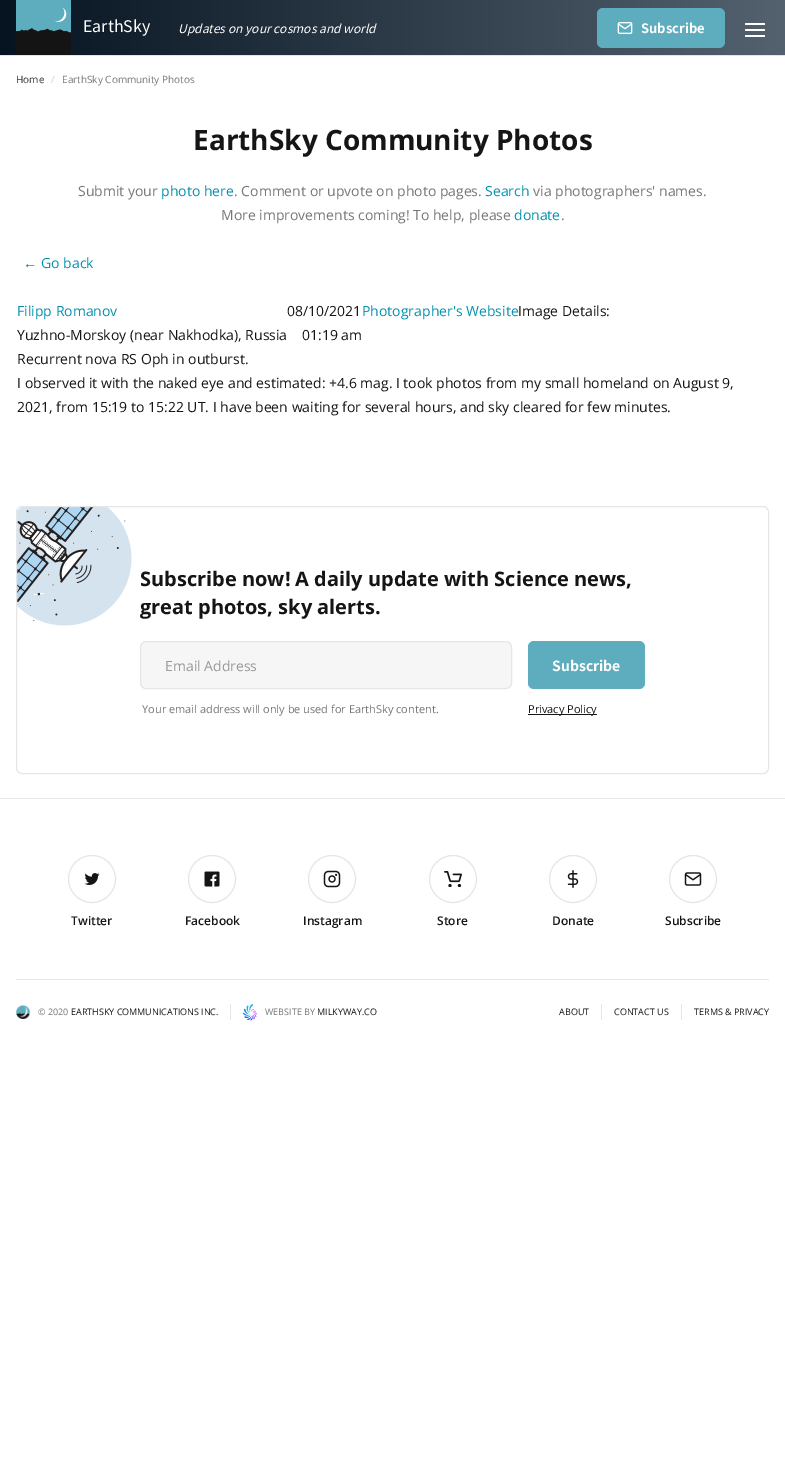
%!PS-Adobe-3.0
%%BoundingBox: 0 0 785 1468
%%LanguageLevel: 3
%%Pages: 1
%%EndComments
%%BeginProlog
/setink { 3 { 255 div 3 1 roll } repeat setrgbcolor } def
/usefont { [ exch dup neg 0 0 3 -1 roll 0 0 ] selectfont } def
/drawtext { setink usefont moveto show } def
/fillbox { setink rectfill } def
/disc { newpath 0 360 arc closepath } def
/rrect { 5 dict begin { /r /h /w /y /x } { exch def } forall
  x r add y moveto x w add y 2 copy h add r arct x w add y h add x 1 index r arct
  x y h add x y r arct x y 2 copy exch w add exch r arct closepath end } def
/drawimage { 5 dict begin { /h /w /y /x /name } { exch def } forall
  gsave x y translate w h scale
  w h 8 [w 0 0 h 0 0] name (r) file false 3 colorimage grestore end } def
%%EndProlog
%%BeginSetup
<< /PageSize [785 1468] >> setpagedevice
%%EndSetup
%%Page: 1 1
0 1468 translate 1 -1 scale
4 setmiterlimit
0 0 785 1468 255 255 255 fillbox
0 55 785 1 229 229 229 fillbox
gsave 0 0 moveto 785 0 lineto 785 55 lineto 0 55 lineto closepath clip newpath
<< /ShadingType 2 /ColorSpace /DeviceRGB /Coords [785 27 0 28] /Extend [true true] /Function << /FunctionType 2 /Domain [0 1] /C0 [0.329 0.38 0.435] /C1 [0.024 0.078 0.129] /N 1 >> >> shfill grestore
(assets/img1.rgb) 16 0 55 55 drawimage
(EarthSky) 83 32 /NotoSansHK-Regular 16 255 255 255 drawtext
(Updates on your cosmos and world) 178 33 /NotoSansHK-Italic 12 255 255 255 drawtext
94 173 191 setink
597 8 128 40 6 rrect fill
(assets/img2.rgb) 617 22 16 12 drawimage
(Subscribe) 641 33 /NotoSansHK-Bold 13 255 255 255 drawtext
745 23 20 2 1 rrect fill
745 29 20 2 1 rrect fill
745 35 20 2 1 rrect fill
(Home) 16 83 /OpenSans-Regular 10 56 56 56 drawtext
(/) 51 83 /OpenSans-Regular 10 209 209 209 drawtext
(EarthSky Community Photos) 62 83 /OpenSans-Regular 10 119 119 119 drawtext
(EarthSky Community Photos) 193 150 /OpenSans-Bold 28 21 21 21 drawtext
(Submit your) 78 196 /OpenSans-Regular 14 119 119 119 drawtext
(photo here) 161 196 /OpenSans-Regular 14 4 145 177 drawtext
(. Comment or upvote on photo pages.) 234 196 /OpenSans-Regular 14 119 119 119 drawtext
(Search) 485 196 /OpenSans-Regular 14 4 145 177 drawtext
(via photographers' names.) 533 196 /OpenSans-Regular 14 119 119 119 drawtext
(More improvements coming! To help, please) 221 220 /OpenSans-Regular 14 119 119 119 drawtext
(donate) 514 220 /OpenSans-Regular 14 4 145 177 drawtext
(.) 561 220 /OpenSans-Regular 14 119 119 119 drawtext
(←) 23 268 /LiberationSans-Regular 14 4 145 177 drawtext
(Go back) 41 268 /OpenSans-Regular 14 4 145 177 drawtext
(Filipp Romanov) 17 316 /OpenSans-Regular 14 4 145 177 drawtext
(Yuzhno-Morskoy \(near Nakhodka\), Russia) 17 340 /OpenSans-Regular 14 21 21 21 drawtext
(08/10/2021) 287 316 /OpenSans-Regular 14 21 21 21 drawtext
(01:19 am) 302 340 /OpenSans-Regular 14 21 21 21 drawtext
(Photographer's Website) 362 316 /OpenSans-Regular 14 4 145 177 drawtext
(Image Details:) 518 316 /OpenSans-Regular 14 21 21 21 drawtext
(Recurrent nova RS Oph in outburst.) 17 364 /OpenSans-Regular 14 21 21 21 drawtext
(I observed it with the naked eye and estimated: +4.6 mag. I took photos from my small homeland on August 9,) 17 388 /OpenSans-Regular 14 21 21 21 drawtext
(2021, from 15:19 to 15:22 UT. I have been waiting for several hours, and sky cleared for few minutes.) 17 412 /OpenSans-Regular 14 21 21 21 drawtext
(assets/img3.rgb) 16 506 116 120 drawimage
230 230 230 setink
16.5 506.5 752 267 5.5 rrect stroke
(Subscribe now! A daily update with Science news,) 140 586 /OpenSans-Bold 20 21 21 21 drawtext
(great photos, sky alerts.) 140 614 /OpenSans-Bold 20 21 21 21 drawtext
246 246 246 setink
140.5 641.5 371 47 5.5 rrect gsave fill grestore
230 230 230 setink
stroke
(Email Address) 165 671 /OpenSans-Regular 14 153 153 153 drawtext
94 173 191 setink
528 641 117 48 6 rrect fill
(Subscribe) 552 671 /NotoSansHK-Bold 14 255 255 255 drawtext
(Your email address will only be used for EarthSky content.) 142 713 /OpenSans-Regular 11 119 119 119 drawtext
528 714 69 1 21 21 21 fillbox
(Privacy Policy) 528 713 /OpenSans-Regular 11 21 21 21 drawtext
0 798 785 1 230 230 230 fillbox
92 879 23.5 disc stroke
(assets/img4.rgb) 84 873 16 12 drawimage
(Twitter) 71 925 /OpenSans-SemiBold 12 21 21 21 drawtext
230 230 230 setink
212 879 23.5 disc stroke
(assets/img5.rgb) 204 871 16 16 drawimage
(Facebook) 185 925 /OpenSans-SemiBold 12 21 21 21 drawtext
230 230 230 setink
332 879 23.5 disc stroke
(assets/img6.rgb) 323 870 18 18 drawimage
(Instagram) 303 925 /OpenSans-SemiBold 12 21 21 21 drawtext
230 230 230 setink
453 879 23.5 disc stroke
(assets/img7.rgb) 444 871 18 16 drawimage
(Store) 437 925 /OpenSans-SemiBold 12 21 21 21 drawtext
230 230 230 setink
573 879 23.5 disc stroke
(assets/img8.rgb) 567 870 12 18 drawimage
(Donate) 552 925 /OpenSans-SemiBold 12 21 21 21 drawtext
230 230 230 setink
693 879 23.5 disc stroke
(assets/img9.rgb) 684 872 18 14 drawimage
(Subscribe) 665 925 /OpenSans-SemiBold 12 21 21 21 drawtext
16 979 753 1 230 230 230 fillbox
(assets/img10.rgb) 16 1005 14 14 drawimage
(© 2020) 38 1015 /OpenSans-Regular 9 119 119 119 drawtext
(EARTHSKY COMMUNICATIONS INC.) 71 1015 /OpenSans-Regular 9 21 21 21 drawtext
230 1004 1 16 230 230 230 fillbox
(assets/img11.rgb) 243 1004 14 17 drawimage
(WEBSITE BY) 265 1015 /OpenSans-Regular 9 119 119 119 drawtext
(MILKYWAY.CO) 317 1015 /OpenSans-Regular 9 21 21 21 drawtext
(ABOUT) 559 1015 /OpenSans-Regular 9 21 21 21 drawtext
601 1004 1 16 230 230 230 fillbox
(CONTACT US) 614 1015 /OpenSans-Regular 9 21 21 21 drawtext
681 1004 1 16 230 230 230 fillbox
(TERMS & PRIVACY) 694 1015 /OpenSans-Regular 9 21 21 21 drawtext
showpage
%%EOF
